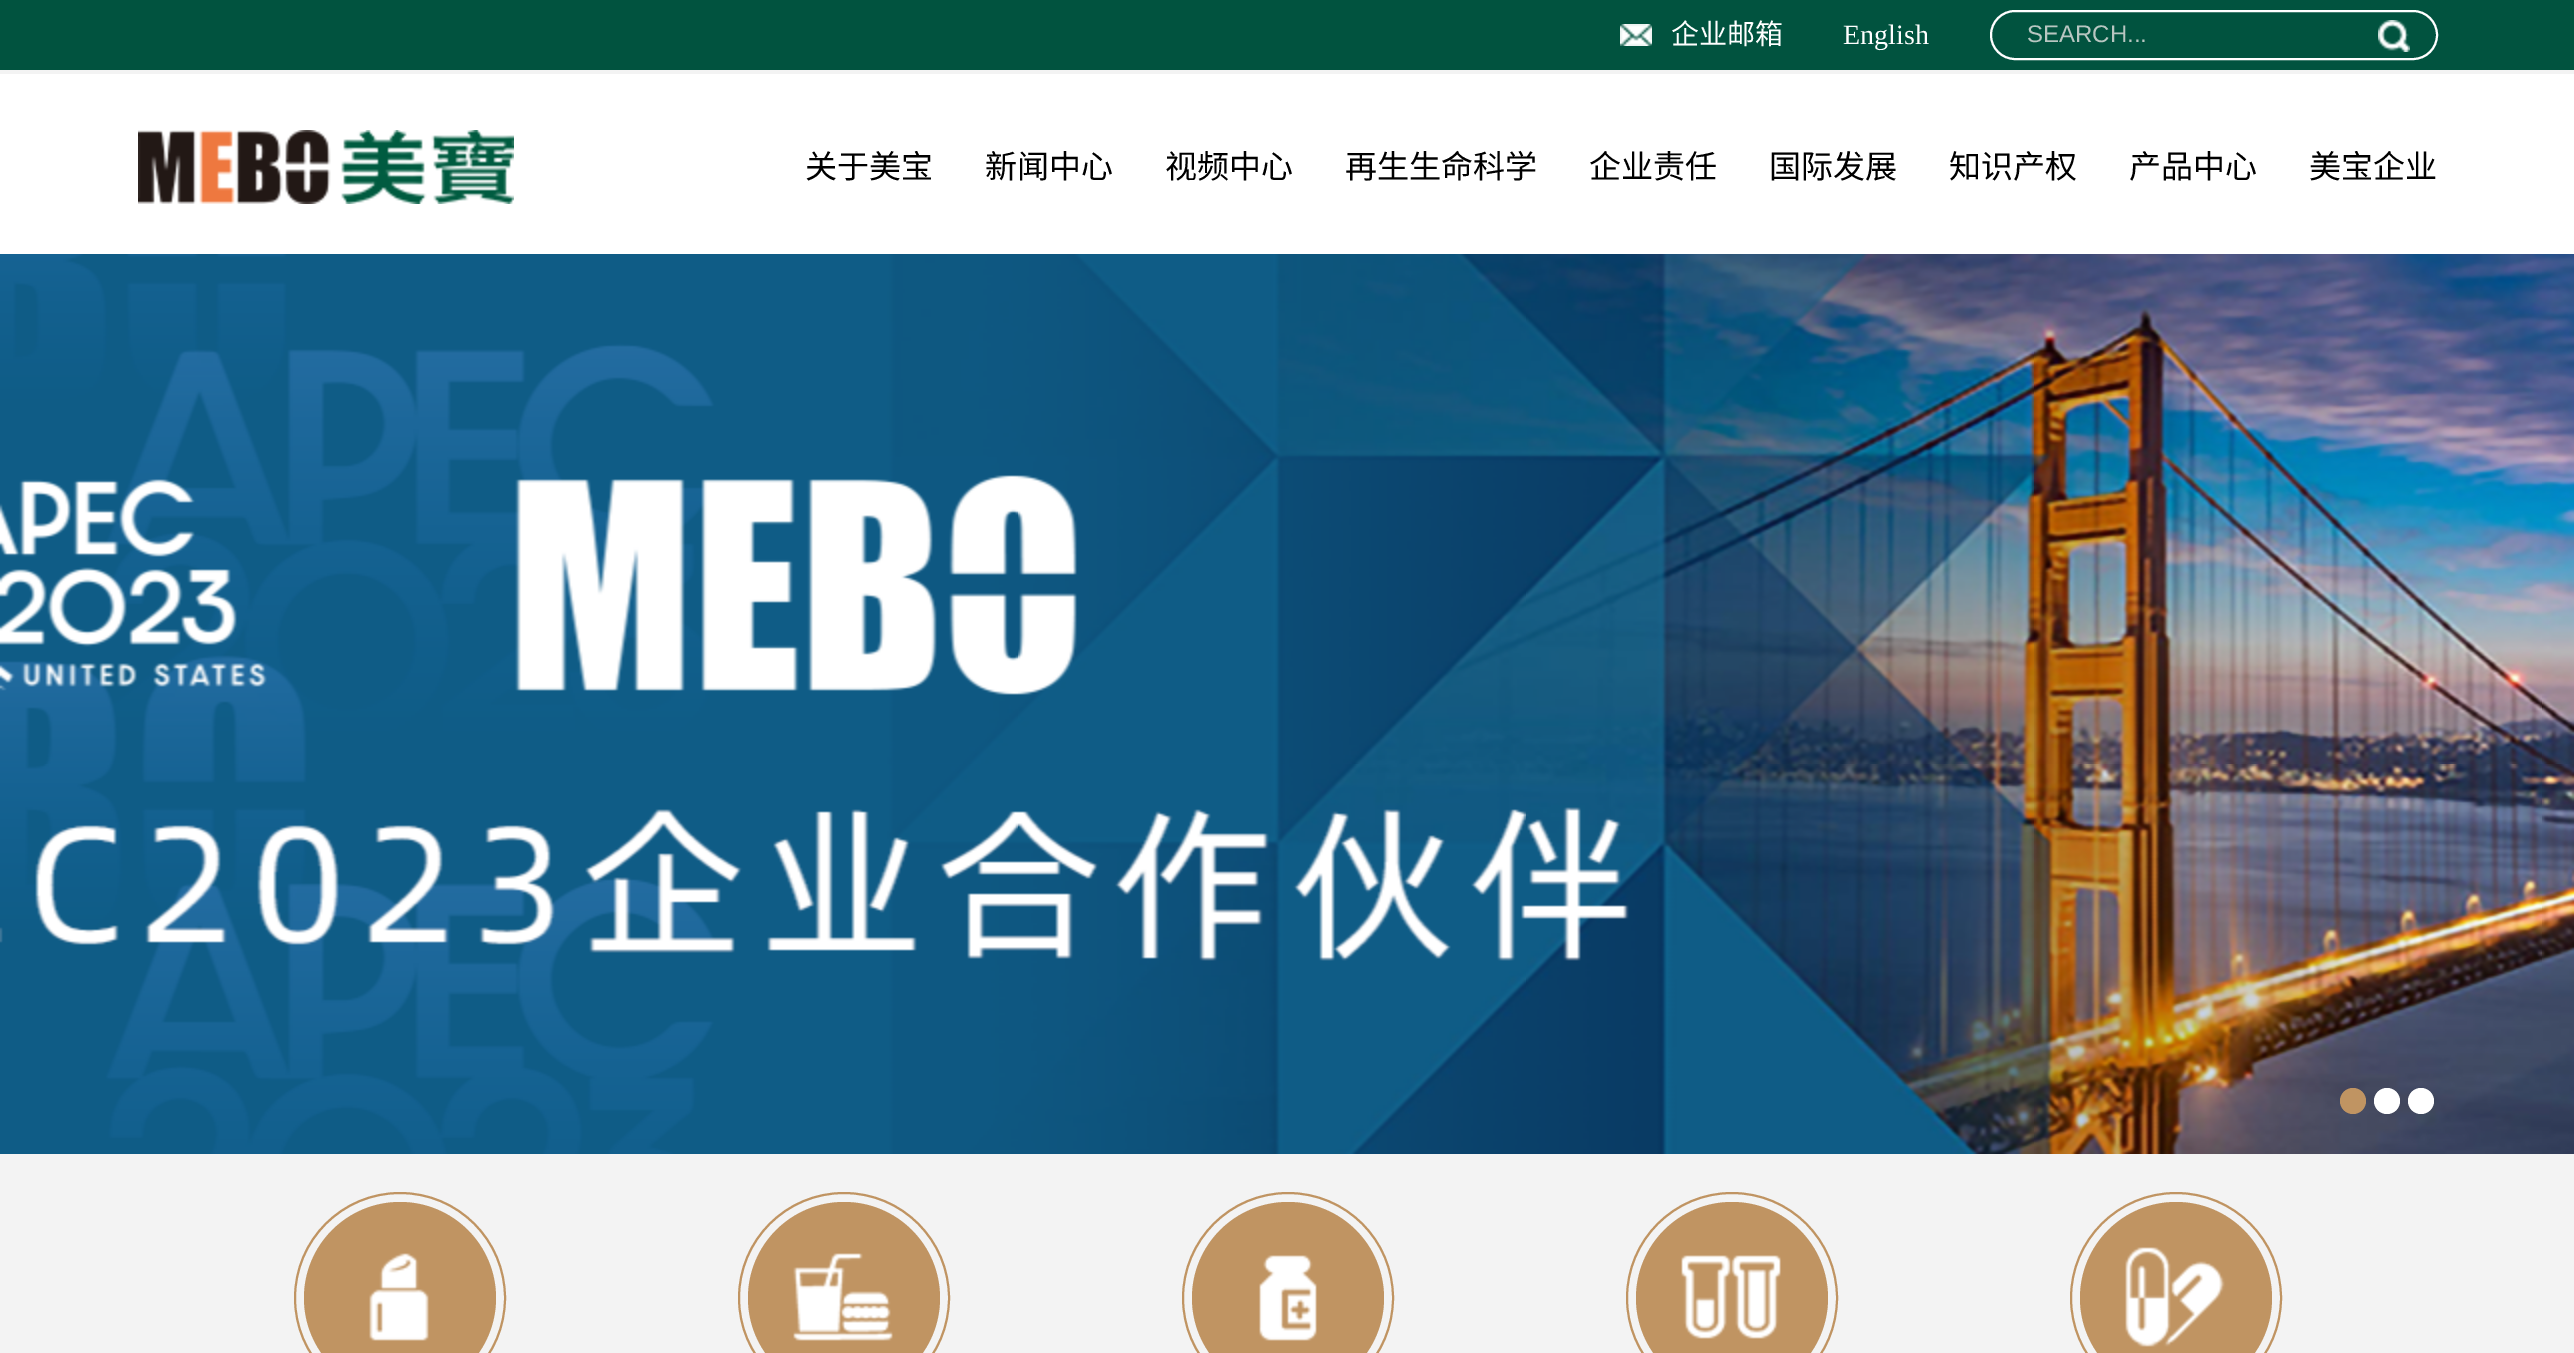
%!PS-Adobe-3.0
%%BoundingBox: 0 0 2574 1353
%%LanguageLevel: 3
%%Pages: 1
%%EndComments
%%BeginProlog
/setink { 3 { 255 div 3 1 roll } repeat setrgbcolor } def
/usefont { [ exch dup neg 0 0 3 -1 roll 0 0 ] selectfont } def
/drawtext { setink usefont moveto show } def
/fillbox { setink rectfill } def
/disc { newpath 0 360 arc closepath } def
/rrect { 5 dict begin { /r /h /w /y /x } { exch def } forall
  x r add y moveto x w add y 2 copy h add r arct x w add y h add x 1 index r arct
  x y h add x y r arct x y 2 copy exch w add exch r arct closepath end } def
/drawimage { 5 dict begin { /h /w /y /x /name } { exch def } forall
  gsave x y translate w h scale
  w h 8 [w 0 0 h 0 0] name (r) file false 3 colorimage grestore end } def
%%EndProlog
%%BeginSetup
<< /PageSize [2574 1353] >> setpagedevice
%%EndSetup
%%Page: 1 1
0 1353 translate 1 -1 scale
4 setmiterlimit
0 0 2574 1353 255 255 255 fillbox
0 0 2574 70 1 83 63 fillbox
0 70 2574 4 243 243 243 fillbox
(assets/img1.rgb) 1620 24 32 22 drawimage
(企业邮箱) 1671 44 /NotoSansCJKSC-Regular 28 255 255 255 drawtext
(English) 1843 44 /LiberationSerif-Regular 28 255 255 255 drawtext
2 setlinewidth
1991 11 446 48 24 rrect stroke
(SEARCH...) 2027 42 /LiberationSans-Regular 24 184 198 193 drawtext
(assets/img2.rgb) 2378 20 32 32 drawimage
(assets/img3.rgb) 138 130 376 74 drawimage
(关于美宝) 805 178 /NotoSansCJKSC-Regular 32 0 0 0 drawtext
(新闻中心) 985 178 /NotoSansCJKSC-Regular 32 0 0 0 drawtext
(视频中心) 1165 178 /NotoSansCJKSC-Regular 32 0 0 0 drawtext
(再生生命科学) 1345 178 /NotoSansCJKSC-Regular 32 0 0 0 drawtext
(企业责任) 1589 178 /NotoSansCJKSC-Regular 32 0 0 0 drawtext
(国际发展) 1769 178 /NotoSansCJKSC-Regular 32 0 0 0 drawtext
(知识产权) 1949 178 /NotoSansCJKSC-Regular 32 0 0 0 drawtext
(产品中心) 2129 178 /NotoSansCJKSC-Regular 32 0 0 0 drawtext
(美宝企业) 2309 178 /NotoSansCJKSC-Regular 32 0 0 0 drawtext
0 1154 2574 199 243 243 243 fillbox
(assets/img4.rgb) 0 254 2574 900 drawimage
192 148 98 setink
2353 1101 13 disc fill
255 255 255 setink
2387 1101 13 disc fill
2421 1101 13 disc fill
192 148 98 setink
400 1298 96 disc fill
(assets/img5.rgb) 369 1253 60 88 drawimage
400 1298 105 disc stroke
844 1298 96 disc fill
(assets/img6.rgb) 793 1253 100 88 drawimage
844 1298 105 disc stroke
1288 1298 96 disc fill
(assets/img7.rgb) 1259 1255 58 86 drawimage
1288 1298 105 disc stroke
1732 1298 96 disc fill
(assets/img8.rgb) 1681 1255 100 84 drawimage
1732 1298 105 disc stroke
2176 1298 96 disc fill
(assets/img9.rgb) 2125 1247 100 100 drawimage
2176 1298 105 disc stroke
showpage
%%EOF
